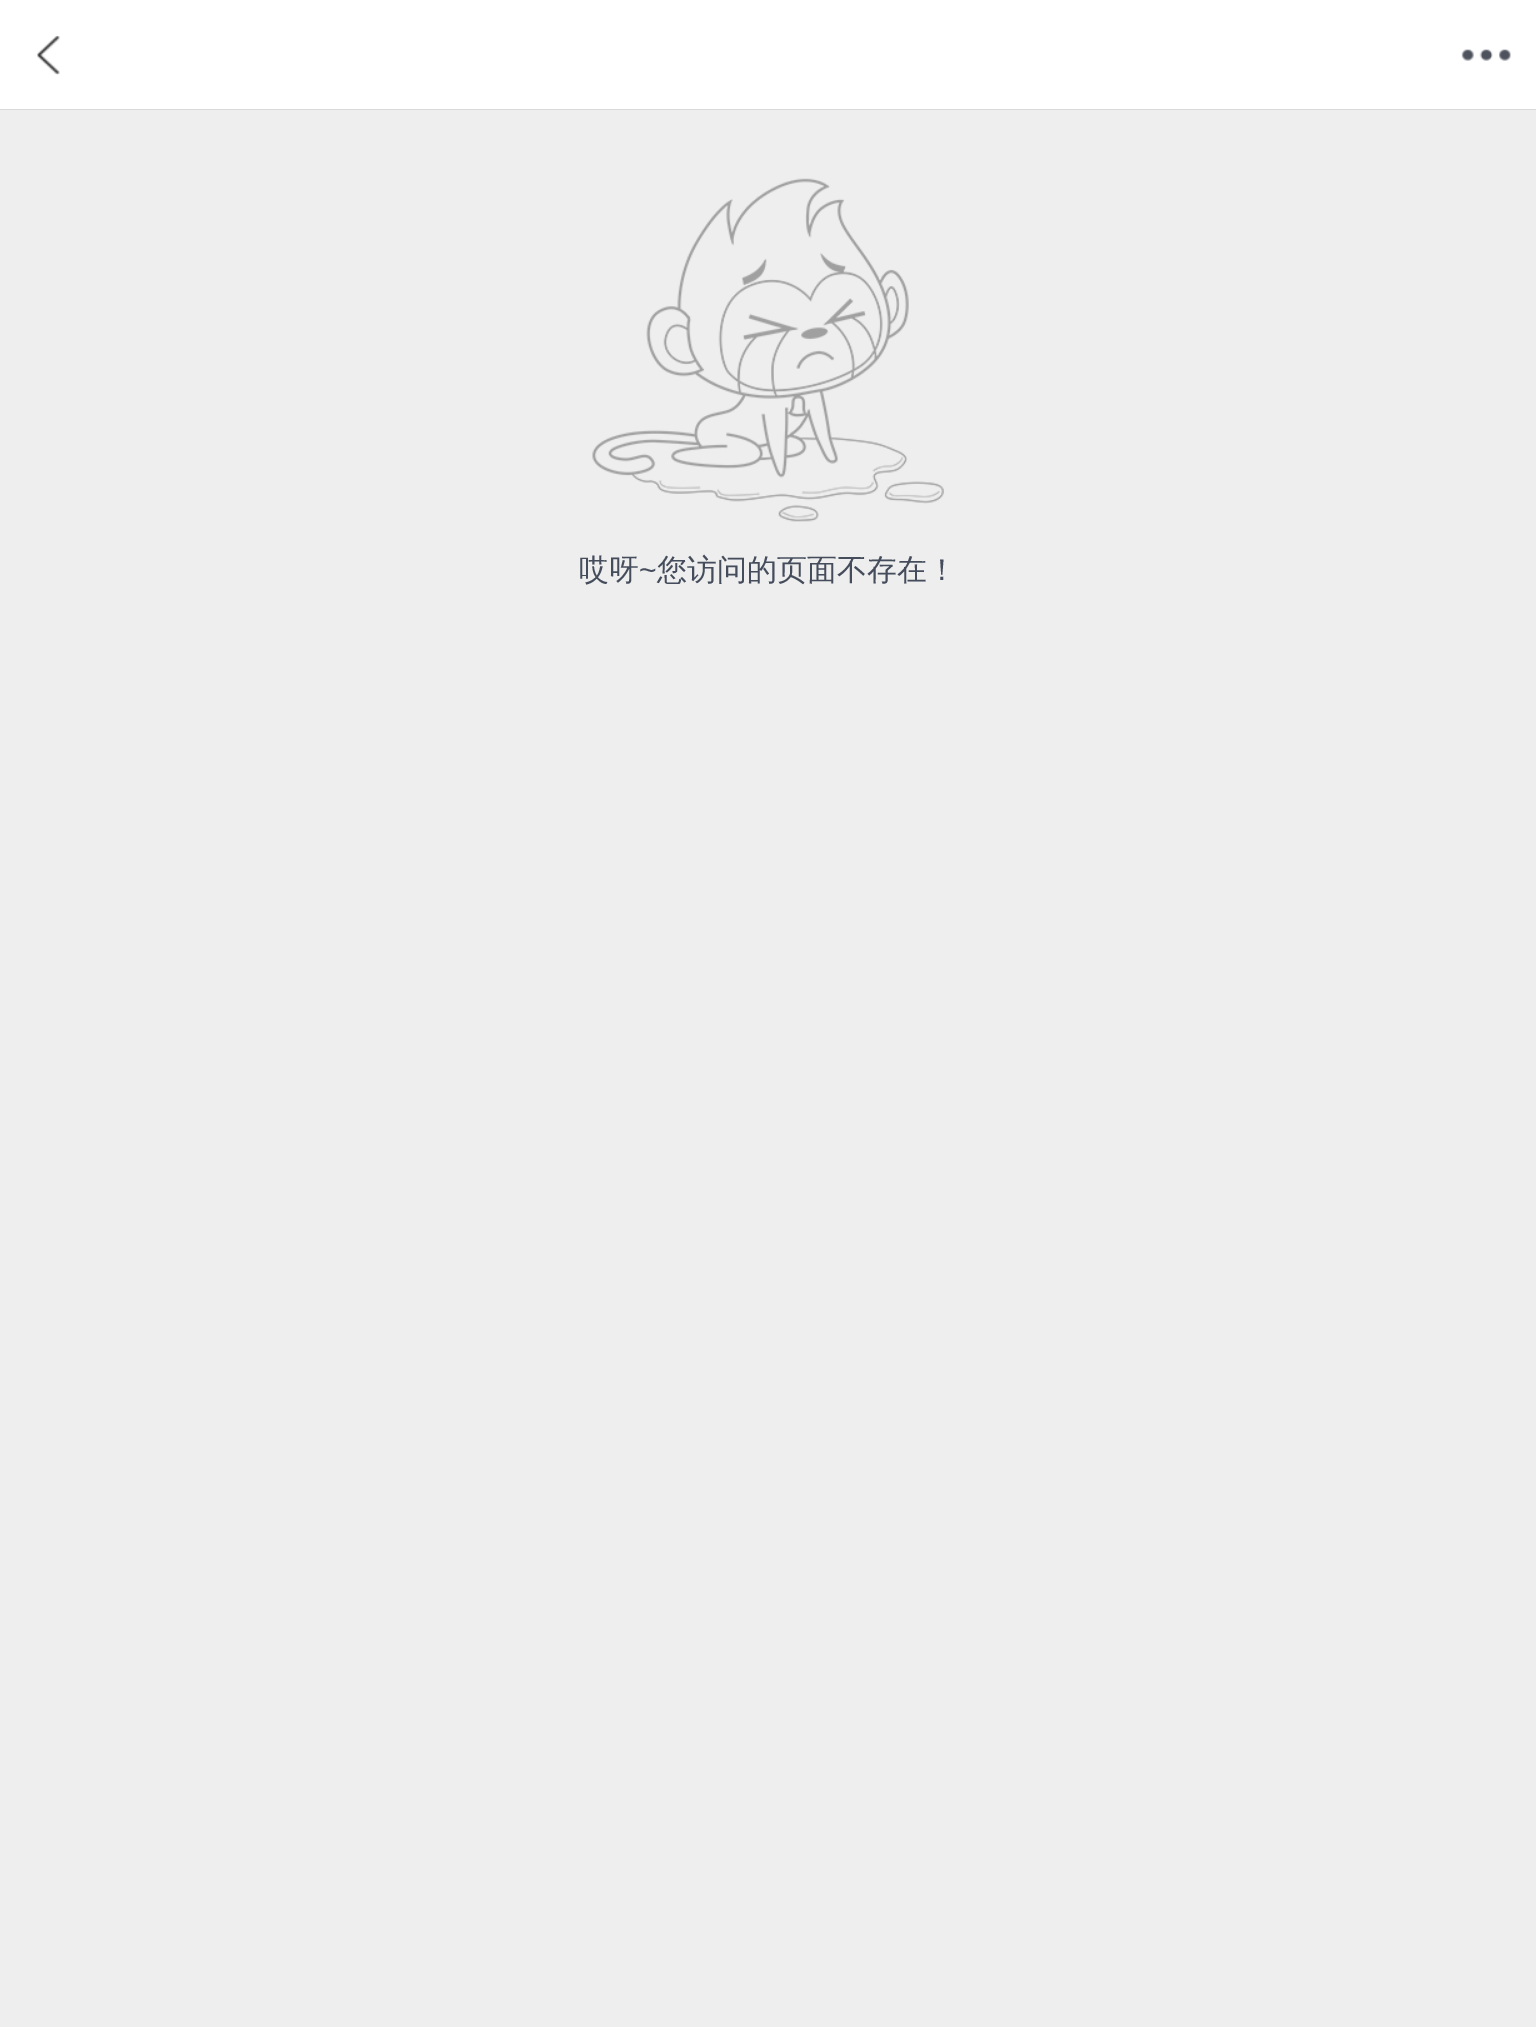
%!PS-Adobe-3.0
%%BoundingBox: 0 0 1536 2027
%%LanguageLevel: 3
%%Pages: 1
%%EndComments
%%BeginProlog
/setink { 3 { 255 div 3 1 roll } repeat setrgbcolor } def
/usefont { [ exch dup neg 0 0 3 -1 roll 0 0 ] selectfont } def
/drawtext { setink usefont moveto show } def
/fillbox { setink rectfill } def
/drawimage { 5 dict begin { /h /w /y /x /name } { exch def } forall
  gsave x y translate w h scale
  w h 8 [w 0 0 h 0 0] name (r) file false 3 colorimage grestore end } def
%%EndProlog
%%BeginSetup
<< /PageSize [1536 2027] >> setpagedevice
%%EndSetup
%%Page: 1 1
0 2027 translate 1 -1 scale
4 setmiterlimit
0 0 1536 2027 238 238 238 fillbox
0 0 1536 109 255 255 255 fillbox
(assets/img1.rgb) 37 36 23 39 drawimage
(assets/img2.rgb) 1461 49 50 12 drawimage
0 109 1536 1 216 216 216 fillbox
(assets/img3.rgb) 592 178 352 344 drawimage
(哎呀) 579 580 /WenQuanYiZenHei-Medium 30 69 76 91 drawtext
(~) 639 580 /LiberationSans-Regular 30 69 76 91 drawtext
(您访问的页面不存在！) 657 580 /WenQuanYiZenHei-Medium 30 69 76 91 drawtext
showpage
%%EOF
